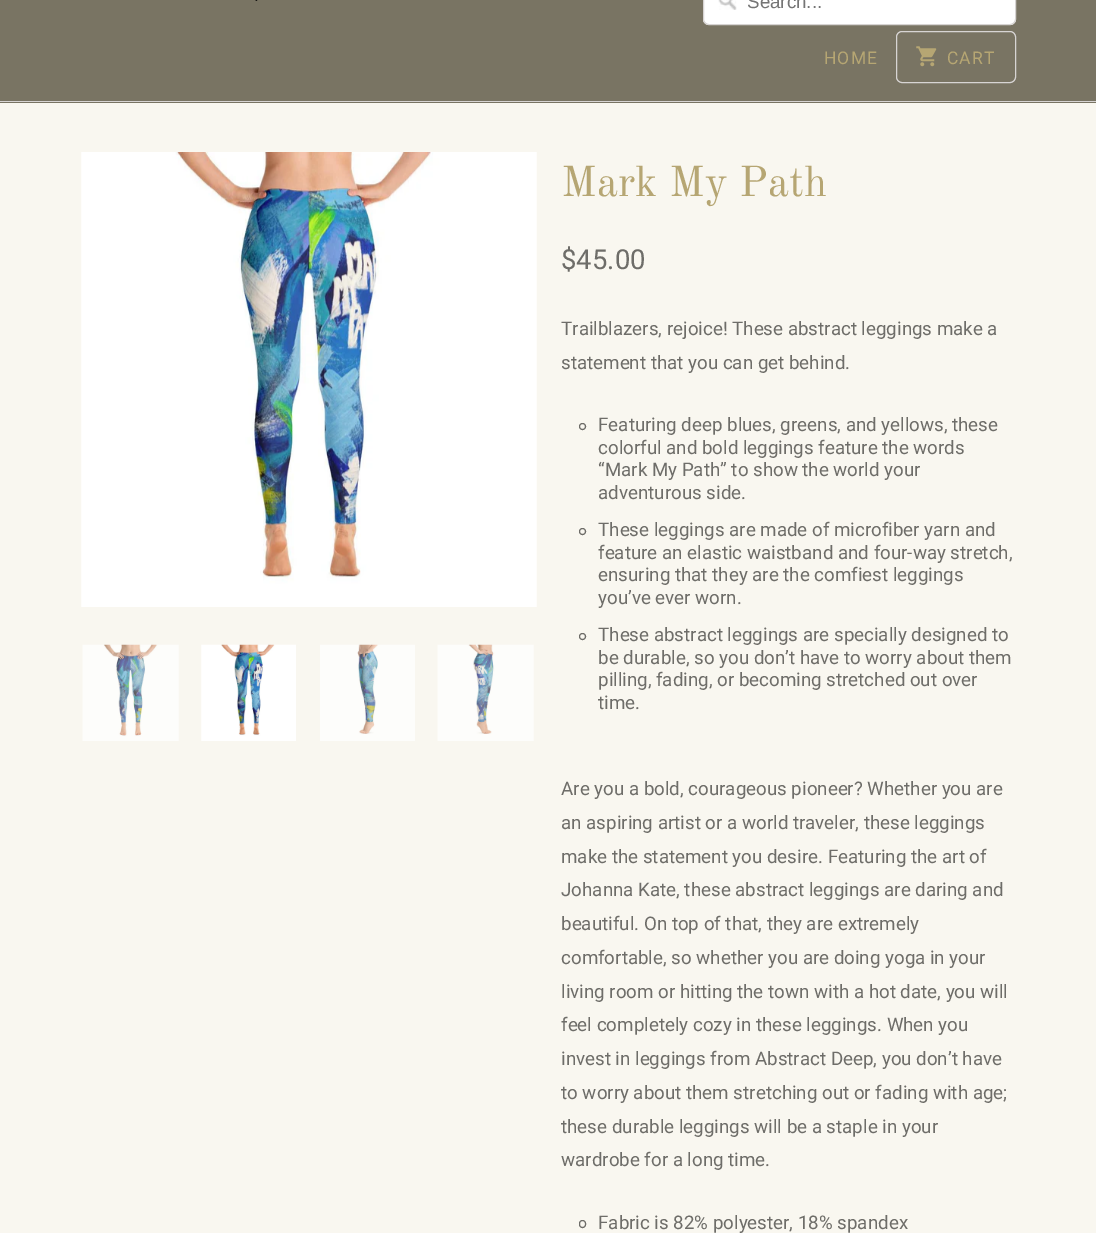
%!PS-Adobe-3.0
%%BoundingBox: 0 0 1096 1233
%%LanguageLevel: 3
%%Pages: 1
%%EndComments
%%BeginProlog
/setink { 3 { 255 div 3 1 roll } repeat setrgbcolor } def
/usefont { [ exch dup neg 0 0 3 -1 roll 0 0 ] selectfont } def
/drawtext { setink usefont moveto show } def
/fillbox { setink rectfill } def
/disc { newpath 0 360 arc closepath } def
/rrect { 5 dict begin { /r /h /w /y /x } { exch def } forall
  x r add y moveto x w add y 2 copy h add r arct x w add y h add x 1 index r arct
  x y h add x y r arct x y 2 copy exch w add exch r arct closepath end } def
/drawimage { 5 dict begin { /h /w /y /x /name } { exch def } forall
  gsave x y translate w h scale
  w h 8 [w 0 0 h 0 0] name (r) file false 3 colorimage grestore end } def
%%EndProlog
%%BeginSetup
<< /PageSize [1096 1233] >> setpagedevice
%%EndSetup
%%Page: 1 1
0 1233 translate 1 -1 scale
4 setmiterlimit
0 0 1096 1233 249 247 240 fillbox
0 0 1096 103 121 116 99 fillbox
0 101 1096 1 215 212 211 fillbox
(assets/img1.rgb) 255 0 3 1 drawimage
255 255 255 setink
703 -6 313 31 6 rrect fill
(assets/img2.rgb) 718 0 19 10 drawimage
215 212 211 setink
703.5 -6.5 312 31 5.5 rrect stroke
(Search...) 747 8 /LiberationSans-Regular 18.75 117 117 117 drawtext
/Roboto-Regular 17.5 usefont
182 166 115 setink
824 64 moveto 1 0 (HOME) ashow
215 212 211 setink
896.5 31.5 119 51 5.5 rrect stroke
(assets/img3.rgb) 916 46 21 21 drawimage
182 166 115 setink
947 64 moveto 1 0 (CART) ashow
(assets/img4.rgb) 81 152 455 455 drawimage
536 152 1 455 254 253 251 fillbox
(assets/img5.rgb) 82 644 97 97 drawimage
(assets/img6.rgb) 201 644 95 97 drawimage
(assets/img7.rgb) 320 644 95 97 drawimage
(assets/img8.rgb) 437 644 97 97 drawimage
(Mark My Path) 561 196 /OldStandardTT-Regular 42.5 182 166 115 drawtext
($45.00) 561 269 /Roboto-Regular 27.5 110 109 105 drawtext
(Trailblazers, rejoice! These abstract leggings make a) 561 335 /Roboto-Regular 18.75 110 109 105 drawtext
(statement that you can get behind.) 561 369 /Roboto-Regular 18.75 110 109 105 drawtext
582.5 426.5 3 disc stroke
(Featuring deep blues, greens, and yellows, these) 598 431 /Roboto-Regular 18.75 110 109 105 drawtext
(colorful and bold leggings feature the words) 598 454 /Roboto-Regular 18.75 110 109 105 drawtext
(“Mark My Path” to show the world your) 598 476 /Roboto-Regular 18.75 110 109 105 drawtext
(adventurous side.) 598 499 /Roboto-Regular 18.75 110 109 105 drawtext
582.5 531.5 3 disc stroke
(These leggings are made of microfiber yarn and) 598 536 /Roboto-Regular 18.75 110 109 105 drawtext
(feature an elastic waistband and four-way stretch,) 598 559 /Roboto-Regular 18.75 110 109 105 drawtext
(ensuring that they are the comfiest leggings) 598 581 /Roboto-Regular 18.75 110 109 105 drawtext
(you’ve ever worn.) 598 604 /Roboto-Regular 18.75 110 109 105 drawtext
582.5 636.5 3 disc stroke
(These abstract leggings are specially designed to) 598 641 /Roboto-Regular 18.75 110 109 105 drawtext
(be durable, so you don’t have to worry about them) 598 664 /Roboto-Regular 18.75 110 109 105 drawtext
(pilling, fading, or becoming stretched out over) 598 686 /Roboto-Regular 18.75 110 109 105 drawtext
(time.) 598 709 /Roboto-Regular 18.75 110 109 105 drawtext
(Are you a bold, courageous pioneer? Whether you are) 561 795 /Roboto-Regular 18.75 110 109 105 drawtext
(an aspiring artist or a world traveler, these leggings) 561 829 /Roboto-Regular 18.75 110 109 105 drawtext
(make the statement you desire. Featuring the art of) 561 863 /Roboto-Regular 18.75 110 109 105 drawtext
(Johanna Kate, these abstract leggings are daring and) 561 896 /Roboto-Regular 18.75 110 109 105 drawtext
(beautiful. On top of that, they are extremely) 561 930 /Roboto-Regular 18.75 110 109 105 drawtext
(comfortable, so whether you are doing yoga in your) 561 964 /Roboto-Regular 18.75 110 109 105 drawtext
(living room or hitting the town with a hot date, you will) 561 998 /Roboto-Regular 18.75 110 109 105 drawtext
(feel completely cozy in these leggings. When you) 561 1031 /Roboto-Regular 18.75 110 109 105 drawtext
(invest in leggings from Abstract Deep, you don’t have) 561 1065 /Roboto-Regular 18.75 110 109 105 drawtext
(to worry about them stretching out or fading with age;) 561 1099 /Roboto-Regular 18.75 110 109 105 drawtext
(these durable leggings will be a staple in your) 561 1133 /Roboto-Regular 18.75 110 109 105 drawtext
(wardrobe for a long time.) 561 1166 /Roboto-Regular 18.75 110 109 105 drawtext
579.5 1220.5 6 7 3 rrect stroke
(Fabric is 82% polyester, 18% spandex) 598 1229 /Roboto-Regular 18.75 110 109 105 drawtext
showpage
%%EOF
